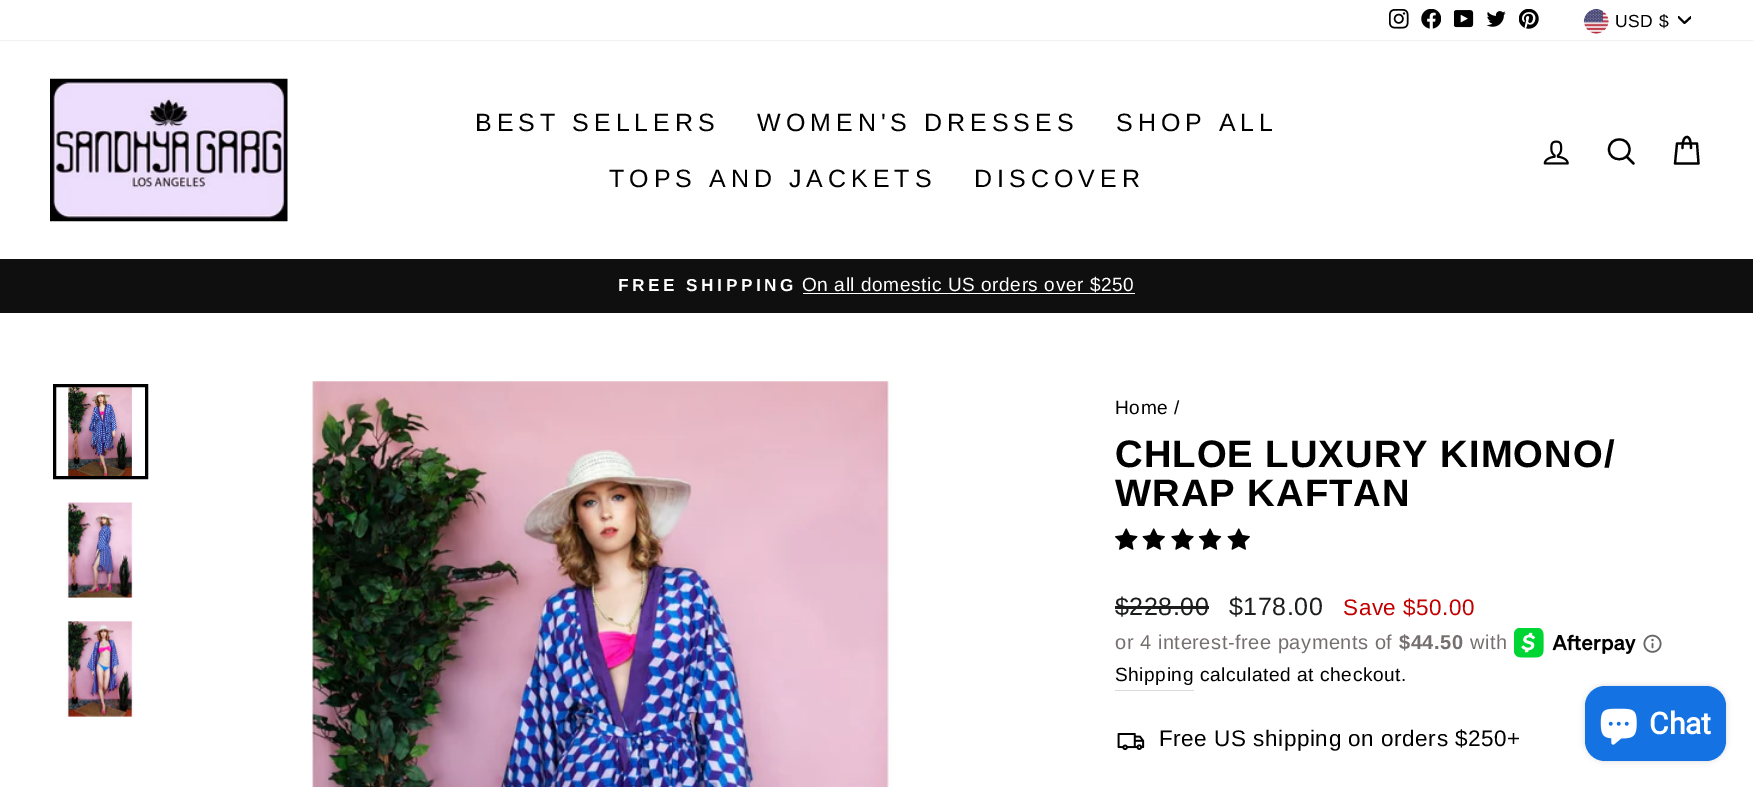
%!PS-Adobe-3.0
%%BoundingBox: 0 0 1753 787
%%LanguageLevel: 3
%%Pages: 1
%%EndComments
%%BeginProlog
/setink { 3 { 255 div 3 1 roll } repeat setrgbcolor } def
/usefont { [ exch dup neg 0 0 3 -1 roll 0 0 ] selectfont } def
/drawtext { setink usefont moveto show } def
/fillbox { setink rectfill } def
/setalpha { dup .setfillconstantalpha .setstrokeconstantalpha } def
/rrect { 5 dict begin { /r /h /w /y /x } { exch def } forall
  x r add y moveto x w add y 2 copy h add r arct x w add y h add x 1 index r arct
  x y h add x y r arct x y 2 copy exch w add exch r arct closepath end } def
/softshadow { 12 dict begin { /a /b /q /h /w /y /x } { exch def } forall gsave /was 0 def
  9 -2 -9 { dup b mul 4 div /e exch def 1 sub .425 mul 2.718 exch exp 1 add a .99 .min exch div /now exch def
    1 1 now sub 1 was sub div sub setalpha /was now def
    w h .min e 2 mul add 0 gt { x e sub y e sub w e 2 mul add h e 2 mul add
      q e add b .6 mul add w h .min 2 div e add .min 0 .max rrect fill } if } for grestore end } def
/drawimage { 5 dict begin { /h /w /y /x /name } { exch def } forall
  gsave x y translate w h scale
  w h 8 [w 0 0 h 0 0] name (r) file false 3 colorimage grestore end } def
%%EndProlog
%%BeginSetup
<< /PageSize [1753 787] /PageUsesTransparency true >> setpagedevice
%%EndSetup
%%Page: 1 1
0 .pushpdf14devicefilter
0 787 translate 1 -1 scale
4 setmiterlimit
0 0 1753 787 255 255 255 fillbox
(assets/img1.rgb) 1389 9 20 20 drawimage
(assets/img2.rgb) 1421 9 20 20 drawimage
(assets/img3.rgb) 1454 10 20 18 drawimage
(assets/img4.rgb) 1486 11 20 16 drawimage
(assets/img5.rgb) 1519 9 20 20 drawimage
(assets/img6.rgb) 1583 8 26 26 drawimage
/LiberationSans-Regular 17.5 usefont
0 0 0 setink
1615 27 moveto 0.5 0 (USD $) ashow
gsave
1678 14 13 14 rectclip
2 setlinewidth
1 setlinecap
1 setlinejoin
1678.5 17 moveto 1684.5 23 lineto 1691 17 lineto stroke
grestore
0 259 1753 54 15 15 15 fillbox
0 0 0 setink
0 41 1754 218 0 0.5 0.2 softshadow
0 41 1753 218 255 255 255 fillbox
(assets/img7.rgb) 50 78 238 144 drawimage
/LiberationSans-Regular 25 usefont
0 0 0 setink
475 131 moveto 5 0 (BEST SELLERS) ashow
757 131 moveto 5 0 (WOMEN'S DRESSES) ashow
1116 131 moveto 5 0 (SHOP ALL) ashow
609 187 moveto 5 0 (TOPS AND JACKETS) ashow
974 187 moveto 5 0 (DISCOVER) ashow
(assets/img8.rgb) 1543 140 26 25 drawimage
2.2 setlinewidth
1 setlinecap
1 setlinejoin
1629.5 149.5 moveto 1629.5 162.5 1609 162.5 1609 149.5 curveto 1609 136 1629.5 136 1629.5 149.5 curveto closepath 1633.5 163.5 moveto 1626.5 156.5 lineto stroke
1682.5 148 moveto 1682.5 139.5 1684.5 137 1687 137 curveto 1689 137 1691 139.5 1691 148 curveto 1677 143.5 moveto 1697 143.5 lineto 1698.5 163.5 lineto 1675 163.5 lineto closepath stroke
/LiberationSans-Bold 17.25 usefont
255 255 255 setink
618 291 moveto 3.5 0 (FREE SHIPPING) ashow
/LiberationSans-Regular 19.1 usefont
802 291 moveto 0.55 0 (On all domestic US orders over $250) ashow
803 293 332 1 255 255 255 fillbox
(assets/img9.rgb) 68 387 64 89 drawimage
0 0 0 setink
3 setlinewidth
0 setlinecap
0 setlinejoin
54.5 385.5 92 92 rectstroke
(assets/img10.rgb) 65 502 68 96 drawimage
(assets/img11.rgb) 65 621 69 96 drawimage
(assets/img12.rgb) 311 381 581 406 drawimage
1115 414 moveto 0.55 0 (Home /) ashow
/LiberationSans-Bold 38.25 usefont
1115 467 moveto 1 0 (CHLOE LUXURY KIMONO/) ashow
1115 506 moveto 1 0 (WRAP KAFTAN) ashow
(assets/img13.rgb) 1115 528 23 22 drawimage
(assets/img14.rgb) 1142 528 23 22 drawimage
(assets/img15.rgb) 1171 528 23 22 drawimage
(assets/img16.rgb) 1198 528 24 22 drawimage
(assets/img14.rgb) 1227 528 23 22 drawimage
/LiberationSans-Regular 25 usefont
28 29 29 setink
1115 615 moveto 0.55 0 ($228.00) ashow
1115 606 94 3 28 29 29 fillbox
1229 615 moveto 0.55 0 ($178.00) ashow
/LiberationSans-Regular 22.5 usefont
194 0 0 setink
1343 615 moveto 0.55 0 (Save $50.00) ashow
/LiberationSans-Regular 20 usefont
118 111 111 setink
1115 649 moveto 0.55 0 (or 4 interest-free payments of) ashow
/LiberationSans-Bold 20 usefont
1399 649 moveto 0.55 0 ($44.50) ashow
/LiberationSans-Regular 20 usefont
1470 649 moveto 0.55 0 (with) ashow
(assets/img17.rgb) 1514 628 122 30 drawimage
(assets/img18.rgb) 1643 634 19 19 drawimage
1115 690 79 1 217 217 217 fillbox
/LiberationSans-Regular 19.1 usefont
0 0 0 setink
1115 681 moveto 0.55 0 (Shipping) ashow
1200 681 moveto 0.55 0 (calculated at checkout.) ashow
(assets/img19.rgb) 1117 733 28 18 drawimage
/LiberationSans-Regular 22.5 usefont
1159 746 moveto 0.55 0 (Free US shipping on orders $250+) ashow
1585 686 141 75 20 3 0.15 softshadow
20 114 226 setink
1585 686 141 75 20 rrect fill
(assets/img20.rgb) 1600 708 37 37 drawimage
(Chat) 1649 734 /Roboto-Bold 30 255 255 255 drawtext
.poppdf14devicefilter showpage
%%EOF
